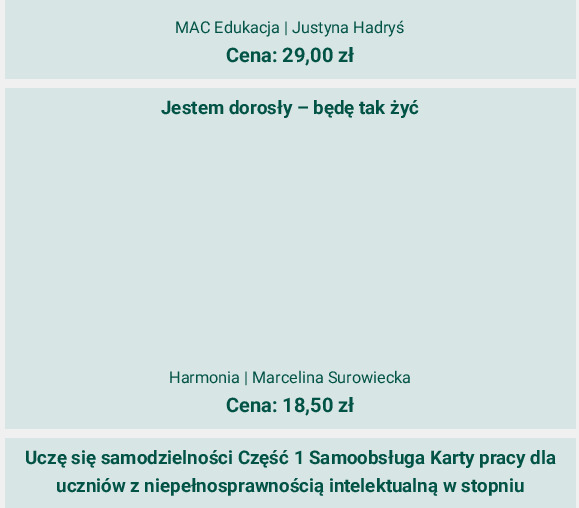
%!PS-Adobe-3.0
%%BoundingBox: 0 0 579 508
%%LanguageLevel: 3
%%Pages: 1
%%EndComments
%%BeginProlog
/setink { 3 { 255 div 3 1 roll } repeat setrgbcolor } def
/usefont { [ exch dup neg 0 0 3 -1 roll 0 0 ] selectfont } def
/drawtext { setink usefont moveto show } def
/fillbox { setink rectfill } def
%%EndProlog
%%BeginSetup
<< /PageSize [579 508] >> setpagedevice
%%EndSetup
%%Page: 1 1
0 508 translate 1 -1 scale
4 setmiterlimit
0 0 579 508 240 240 240 fillbox
5 0 571 79 216 229 229 fillbox
(MAC Edukacja | Justyna Hadryś) 175 33 /Roboto-Regular 16.25 0 83 69 drawtext
(Cena: 29,00 zł) 226 62 /Roboto-Bold 20 0 83 69 drawtext
5 88 571 341 216 229 229 fillbox
(Jestem dorosły – będę tak żyć) 161 114 /Roboto-Bold 18.75 0 83 69 drawtext
(Harmonia | Marcelina Surowiecka) 169 383 /Roboto-Regular 16.25 0 83 69 drawtext
(Cena: 18,50 zł) 226 412 /Roboto-Bold 20 0 83 69 drawtext
5 438 571 70 216 229 229 fillbox
(Uczę się samodzielności Część 1 Samoobsługa Karty pracy dla) 25 464 /Roboto-Bold 18.75 0 83 69 drawtext
(uczniów z niepełnosprawnością intelektualną w stopniu) 56 492 /Roboto-Bold 18.75 0 83 69 drawtext
showpage
%%EOF
